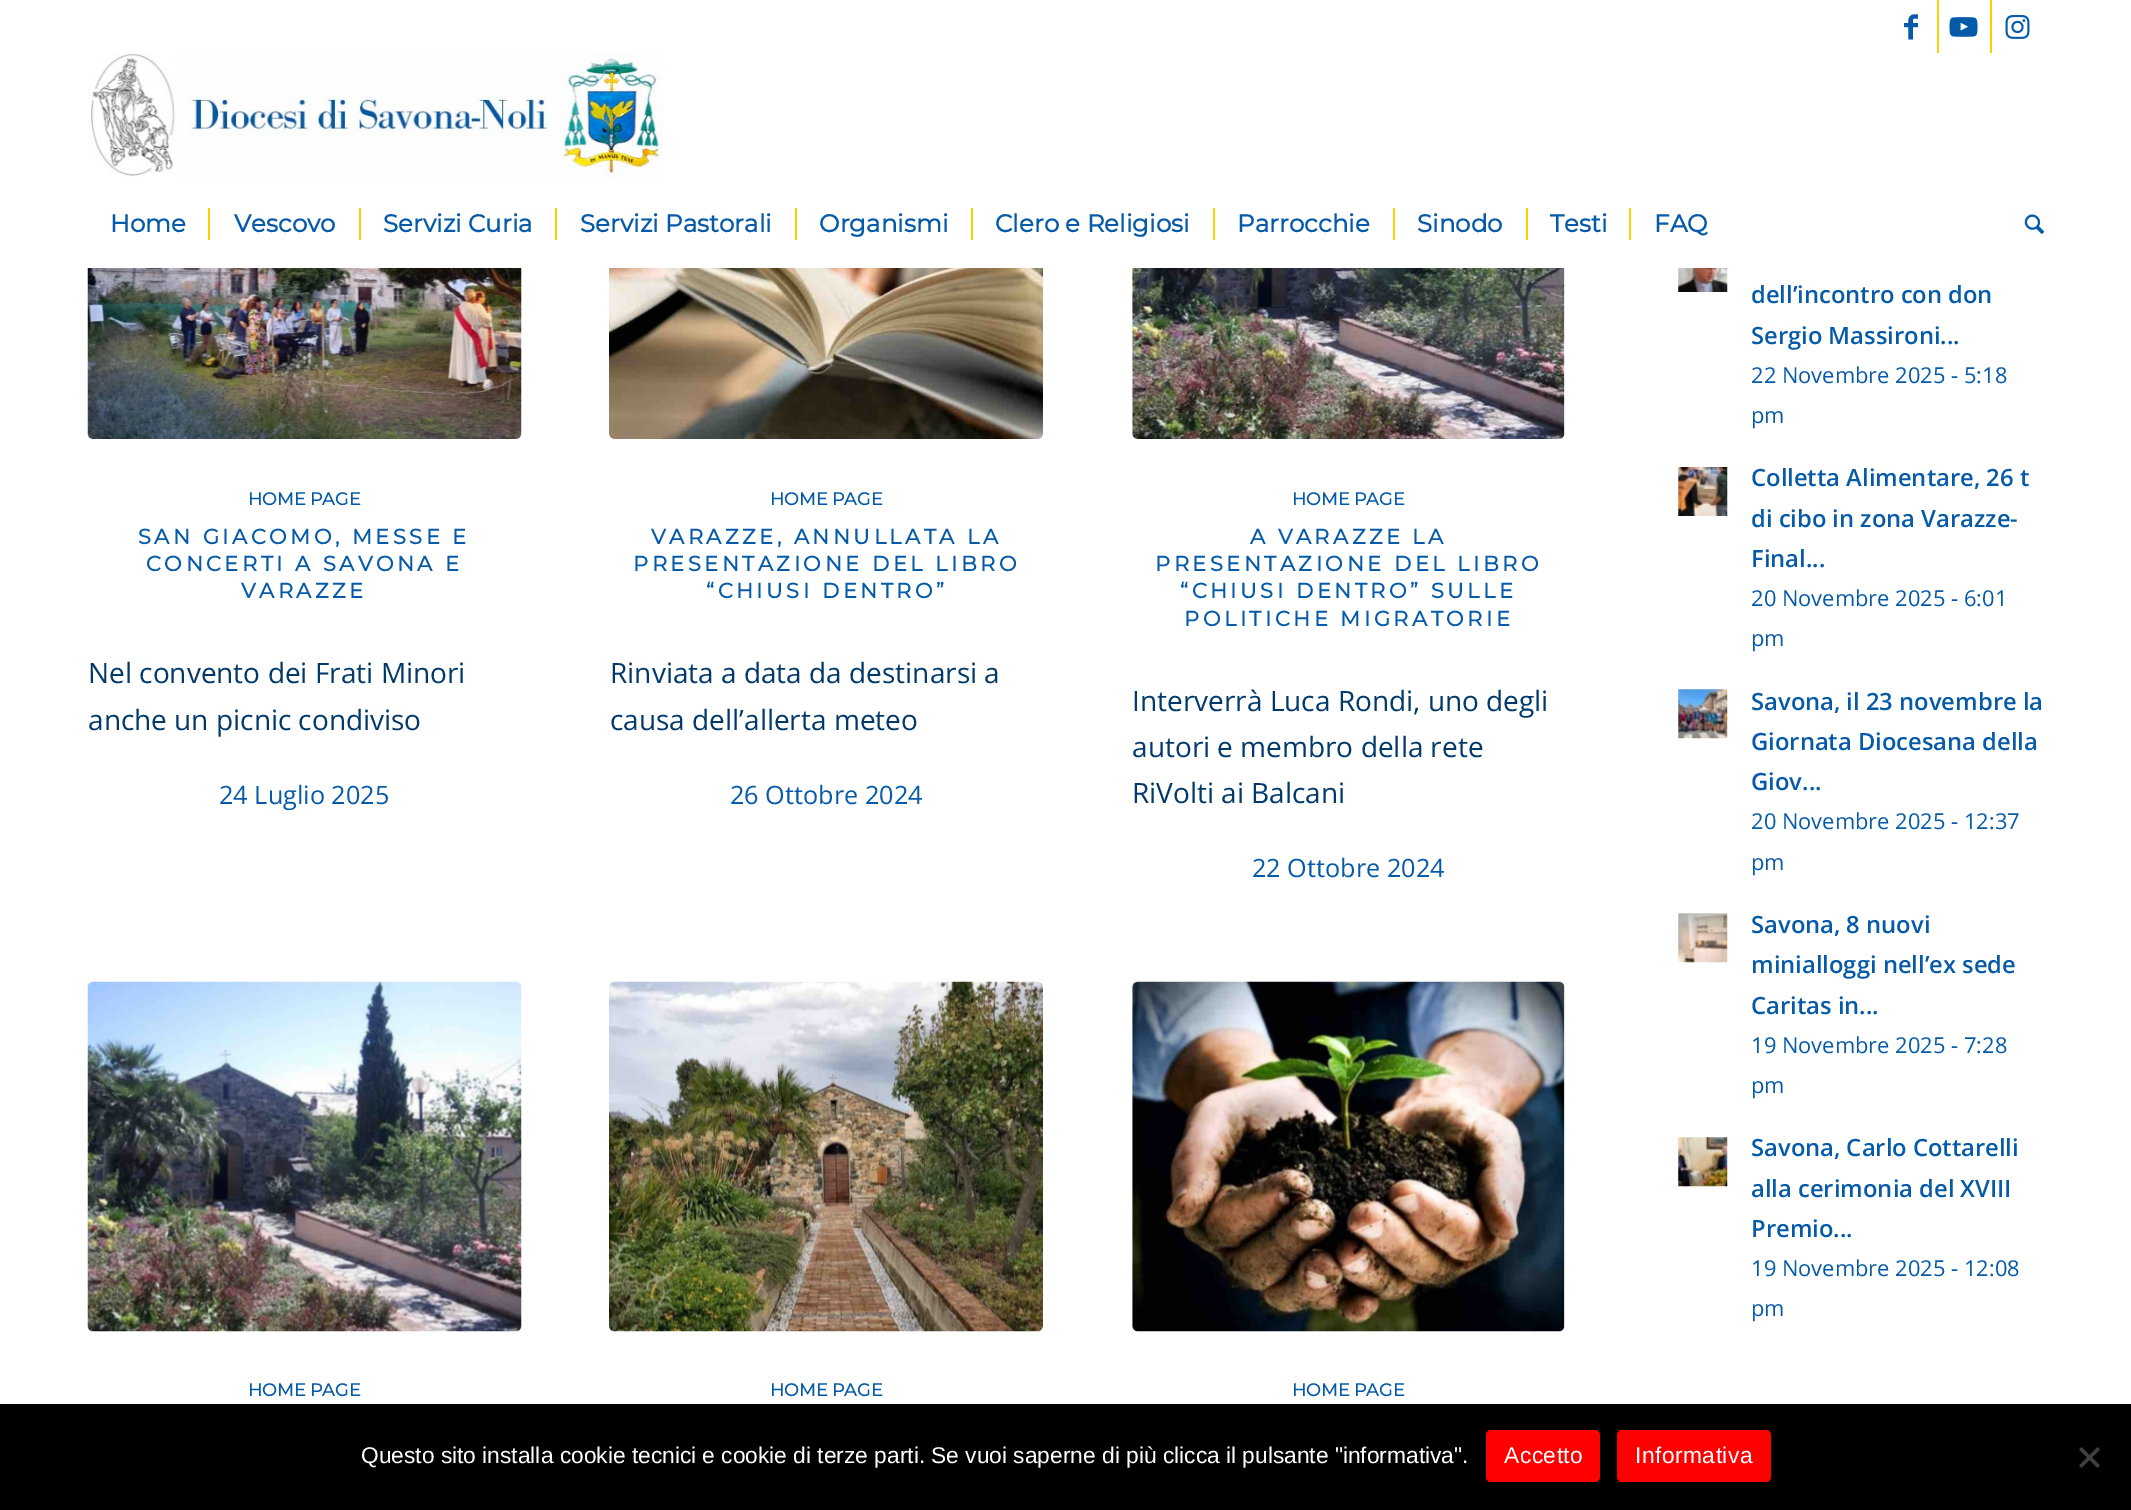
%!PS-Adobe-3.0
%%BoundingBox: 0 0 2131 1510
%%LanguageLevel: 3
%%Pages: 1
%%EndComments
%%BeginProlog
/setink { 3 { 255 div 3 1 roll } repeat setrgbcolor } def
/usefont { [ exch dup neg 0 0 3 -1 roll 0 0 ] selectfont } def
/drawtext { setink usefont moveto show } def
/fillbox { setink rectfill } def
/rrect { 5 dict begin { /r /h /w /y /x } { exch def } forall
  x r add y moveto x w add y 2 copy h add r arct x w add y h add x 1 index r arct
  x y h add x y r arct x y 2 copy exch w add exch r arct closepath end } def
/drawimage { 5 dict begin { /h /w /y /x /name } { exch def } forall
  gsave x y translate w h scale
  w h 8 [w 0 0 h 0 0] name (r) file false 3 colorimage grestore end } def
%%EndProlog
%%BeginSetup
<< /PageSize [2131 1510] >> setpagedevice
%%EndSetup
%%Page: 1 1
0 1510 translate 1 -1 scale
4 setmiterlimit
0 0 2131 1510 255 255 255 fillbox
1937 0 2 53 250 208 0 fillbox
(assets/img1.rgb) 1904 14 14 26 drawimage
1990 0 2 53 250 208 0 fillbox
(assets/img2.rgb) 1949 17 29 20 drawimage
(assets/img3.rgb) 2005 14 25 25 drawimage
(assets/img4.rgb) 88 53 576 126 drawimage
(Home) 110 232 /Montserrat-Bold 24.5 5 90 169 drawtext
(Vescovo) 234 232 /Montserrat-Bold 24.5 5 90 169 drawtext
208 208 2 32 250 208 0 fillbox
(Servizi Curia) 383 232 /Montserrat-Bold 24.5 5 90 169 drawtext
359 208 2 32 250 208 0 fillbox
(Servizi Pastorali) 580 232 /Montserrat-Bold 24.5 5 90 169 drawtext
555 208 2 32 250 208 0 fillbox
(Organismi) 819 232 /Montserrat-Bold 24.5 5 90 169 drawtext
795 208 2 32 250 208 0 fillbox
(Clero e Religiosi) 995 232 /Montserrat-Bold 24.5 5 90 169 drawtext
971 208 2 32 250 208 0 fillbox
(Parrocchie) 1237 232 /Montserrat-Bold 24.5 5 90 169 drawtext
1213 208 2 32 250 208 0 fillbox
(Sinodo) 1417 232 /Montserrat-Bold 24.5 5 90 169 drawtext
1393 208 2 32 250 208 0 fillbox
(Testi) 1550 232 /Montserrat-Bold 24.5 5 90 169 drawtext
1526 208 2 32 250 208 0 fillbox
(FAQ) 1654 232 /Montserrat-Bold 24.5 5 90 169 drawtext
1629 208 2 32 250 208 0 fillbox
(assets/img5.rgb) 2024 214 20 20 drawimage
(assets/img6.rgb) 87 268 435 171 drawimage
(HOME PAGE) 248 505 /Montserrat-Bold 17.5 5 90 169 drawtext
/Montserrat-Bold 21 usefont
138 544 moveto 3.5 0 (SAN GIACOMO, MESSE E) ashow
146 571 moveto 3.5 0 (CONCERTI A SAVONA E) ashow
241 598 moveto 3.5 0 (VARAZZE) ashow
(Nel convento dei Frati Minori) 88 683 /OpenSans-Regular 28 1 57 107 drawtext
(anche un picnic condiviso) 88 730 /OpenSans-Regular 28 1 57 107 drawtext
(24 Luglio 2025) 219 804 /OpenSans-Regular 25.25 5 90 169 drawtext
(assets/img7.rgb) 609 268 434 171 drawimage
(HOME PAGE) 770 505 /Montserrat-Bold 17.5 5 90 169 drawtext
/Montserrat-Bold 21 usefont
651 544 moveto 3.5 0 (VARAZZE, ANNULLATA LA) ashow
633 571 moveto 3.5 0 (PRESENTAZIONE DEL LIBRO) ashow
706 598 moveto 3.5 0 (“CHIUSI DENTRO”) ashow
(Rinviata a data da destinarsi a) 610 683 /OpenSans-Regular 28 1 57 107 drawtext
(causa dell’allerta meteo) 610 730 /OpenSans-Regular 28 1 57 107 drawtext
(26 Ottobre 2024) 730 804 /OpenSans-Regular 25.25 5 90 169 drawtext
(assets/img8.rgb) 1132 268 433 171 drawimage
(HOME PAGE) 1292 505 /Montserrat-Bold 17.5 5 90 169 drawtext
/Montserrat-Bold 21 usefont
1250 544 moveto 3.5 0 (A VARAZZE LA) ashow
1155 571 moveto 3.5 0 (PRESENTAZIONE DEL LIBRO) ashow
1180 598 moveto 3.5 0 (“CHIUSI DENTRO” SULLE) ashow
1184 626 moveto 3.5 0 (POLITICHE MIGRATORIE) ashow
(Interverrà Luca Rondi, uno degli) 1132 711 /OpenSans-Regular 28 1 57 107 drawtext
(autori e membro della rete) 1132 757 /OpenSans-Regular 28 1 57 107 drawtext
(RiVolti ai Balcani) 1132 803 /OpenSans-Regular 28 1 57 107 drawtext
(22 Ottobre 2024) 1252 877 /OpenSans-Regular 25.25 5 90 169 drawtext
(assets/img9.rgb) 87 981 435 351 drawimage
(HOME PAGE) 248 1396 /Montserrat-Bold 17.5 5 90 169 drawtext
(assets/img10.rgb) 609 981 434 351 drawimage
(HOME PAGE) 770 1396 /Montserrat-Bold 17.5 5 90 169 drawtext
(assets/img11.rgb) 1132 981 433 351 drawimage
(HOME PAGE) 1292 1396 /Montserrat-Bold 17.5 5 90 169 drawtext
(assets/img12.rgb) 1678 268 50 24 drawimage
(dell’incontro con don) 1751 303 /OpenSans-SemiBold 23.75 5 90 169 drawtext
(Sergio Massironi...) 1751 344 /OpenSans-SemiBold 23.75 5 90 169 drawtext
(22 Novembre 2025 - 5:18) 1751 383 /OpenSans-Regular 21.9 5 90 169 drawtext
(pm) 1751 423 /OpenSans-Regular 21.9 5 90 169 drawtext
(assets/img13.rgb) 1678 467 50 49 drawimage
(Colletta Alimentare, 26 t) 1751 486 /OpenSans-SemiBold 23.75 5 90 169 drawtext
(di cibo in zona Varazze-) 1751 527 /OpenSans-SemiBold 23.75 5 90 169 drawtext
(Final...) 1751 567 /OpenSans-SemiBold 23.75 5 90 169 drawtext
(20 Novembre 2025 - 6:01) 1751 606 /OpenSans-Regular 21.9 5 90 169 drawtext
(pm) 1751 646 /OpenSans-Regular 21.9 5 90 169 drawtext
(assets/img14.rgb) 1678 689 50 50 drawimage
(Savona, il 23 novembre la) 1751 710 /OpenSans-SemiBold 23.75 5 90 169 drawtext
(Giornata Diocesana della) 1751 750 /OpenSans-SemiBold 23.75 5 90 169 drawtext
(Giov...) 1751 790 /OpenSans-SemiBold 23.75 5 90 169 drawtext
(20 Novembre 2025 - 12:37) 1751 829 /OpenSans-Regular 21.9 5 90 169 drawtext
(pm) 1751 870 /OpenSans-Regular 21.9 5 90 169 drawtext
(assets/img15.rgb) 1678 913 50 50 drawimage
(Savona, 8 nuovi) 1751 933 /OpenSans-SemiBold 23.75 5 90 169 drawtext
(minialloggi nell’ex sede) 1751 973 /OpenSans-SemiBold 23.75 5 90 169 drawtext
(Caritas in...) 1751 1014 /OpenSans-SemiBold 23.75 5 90 169 drawtext
(19 Novembre 2025 - 7:28) 1751 1053 /OpenSans-Regular 21.9 5 90 169 drawtext
(pm) 1751 1093 /OpenSans-Regular 21.9 5 90 169 drawtext
(assets/img16.rgb) 1678 1137 50 50 drawimage
(Savona, Carlo Cottarelli) 1751 1156 /OpenSans-SemiBold 23.75 5 90 169 drawtext
(alla cerimonia del XVIII) 1751 1197 /OpenSans-SemiBold 23.75 5 90 169 drawtext
(Premio...) 1751 1237 /OpenSans-SemiBold 23.75 5 90 169 drawtext
(19 Novembre 2025 - 12:08) 1751 1276 /OpenSans-Regular 21.9 5 90 169 drawtext
(pm) 1751 1316 /OpenSans-Regular 21.9 5 90 169 drawtext
0 1404 2131 106 0 0 0 fillbox
(Questo sito installa cookie tecnici e cookie di terze parti. Se vuoi saperne di più clicca il pulsante "informativa".) 361 1463 /LiberationSans-Regular 22.75 255 255 255 drawtext
255 0 0 setink
1486 1430 114 52 5 rrect fill
255 255 255 setink
1504 1463 moveto 0.5 0 (Accetto) ashow
255 0 0 setink
1617 1430 154 52 5 rrect fill
255 255 255 setink
1635 1463 moveto 0.5 0 (Informativa) ashow
64 64 64 setink
2097.5 1447 moveto 2100 1449.5 lineto 2081.5 1468 lineto 2079 1465.5 lineto closepath fill
2079 1449.5 moveto 2081.5 1447 lineto 2100 1465.5 lineto 2097.5 1468 lineto closepath fill
showpage
%%EOF
